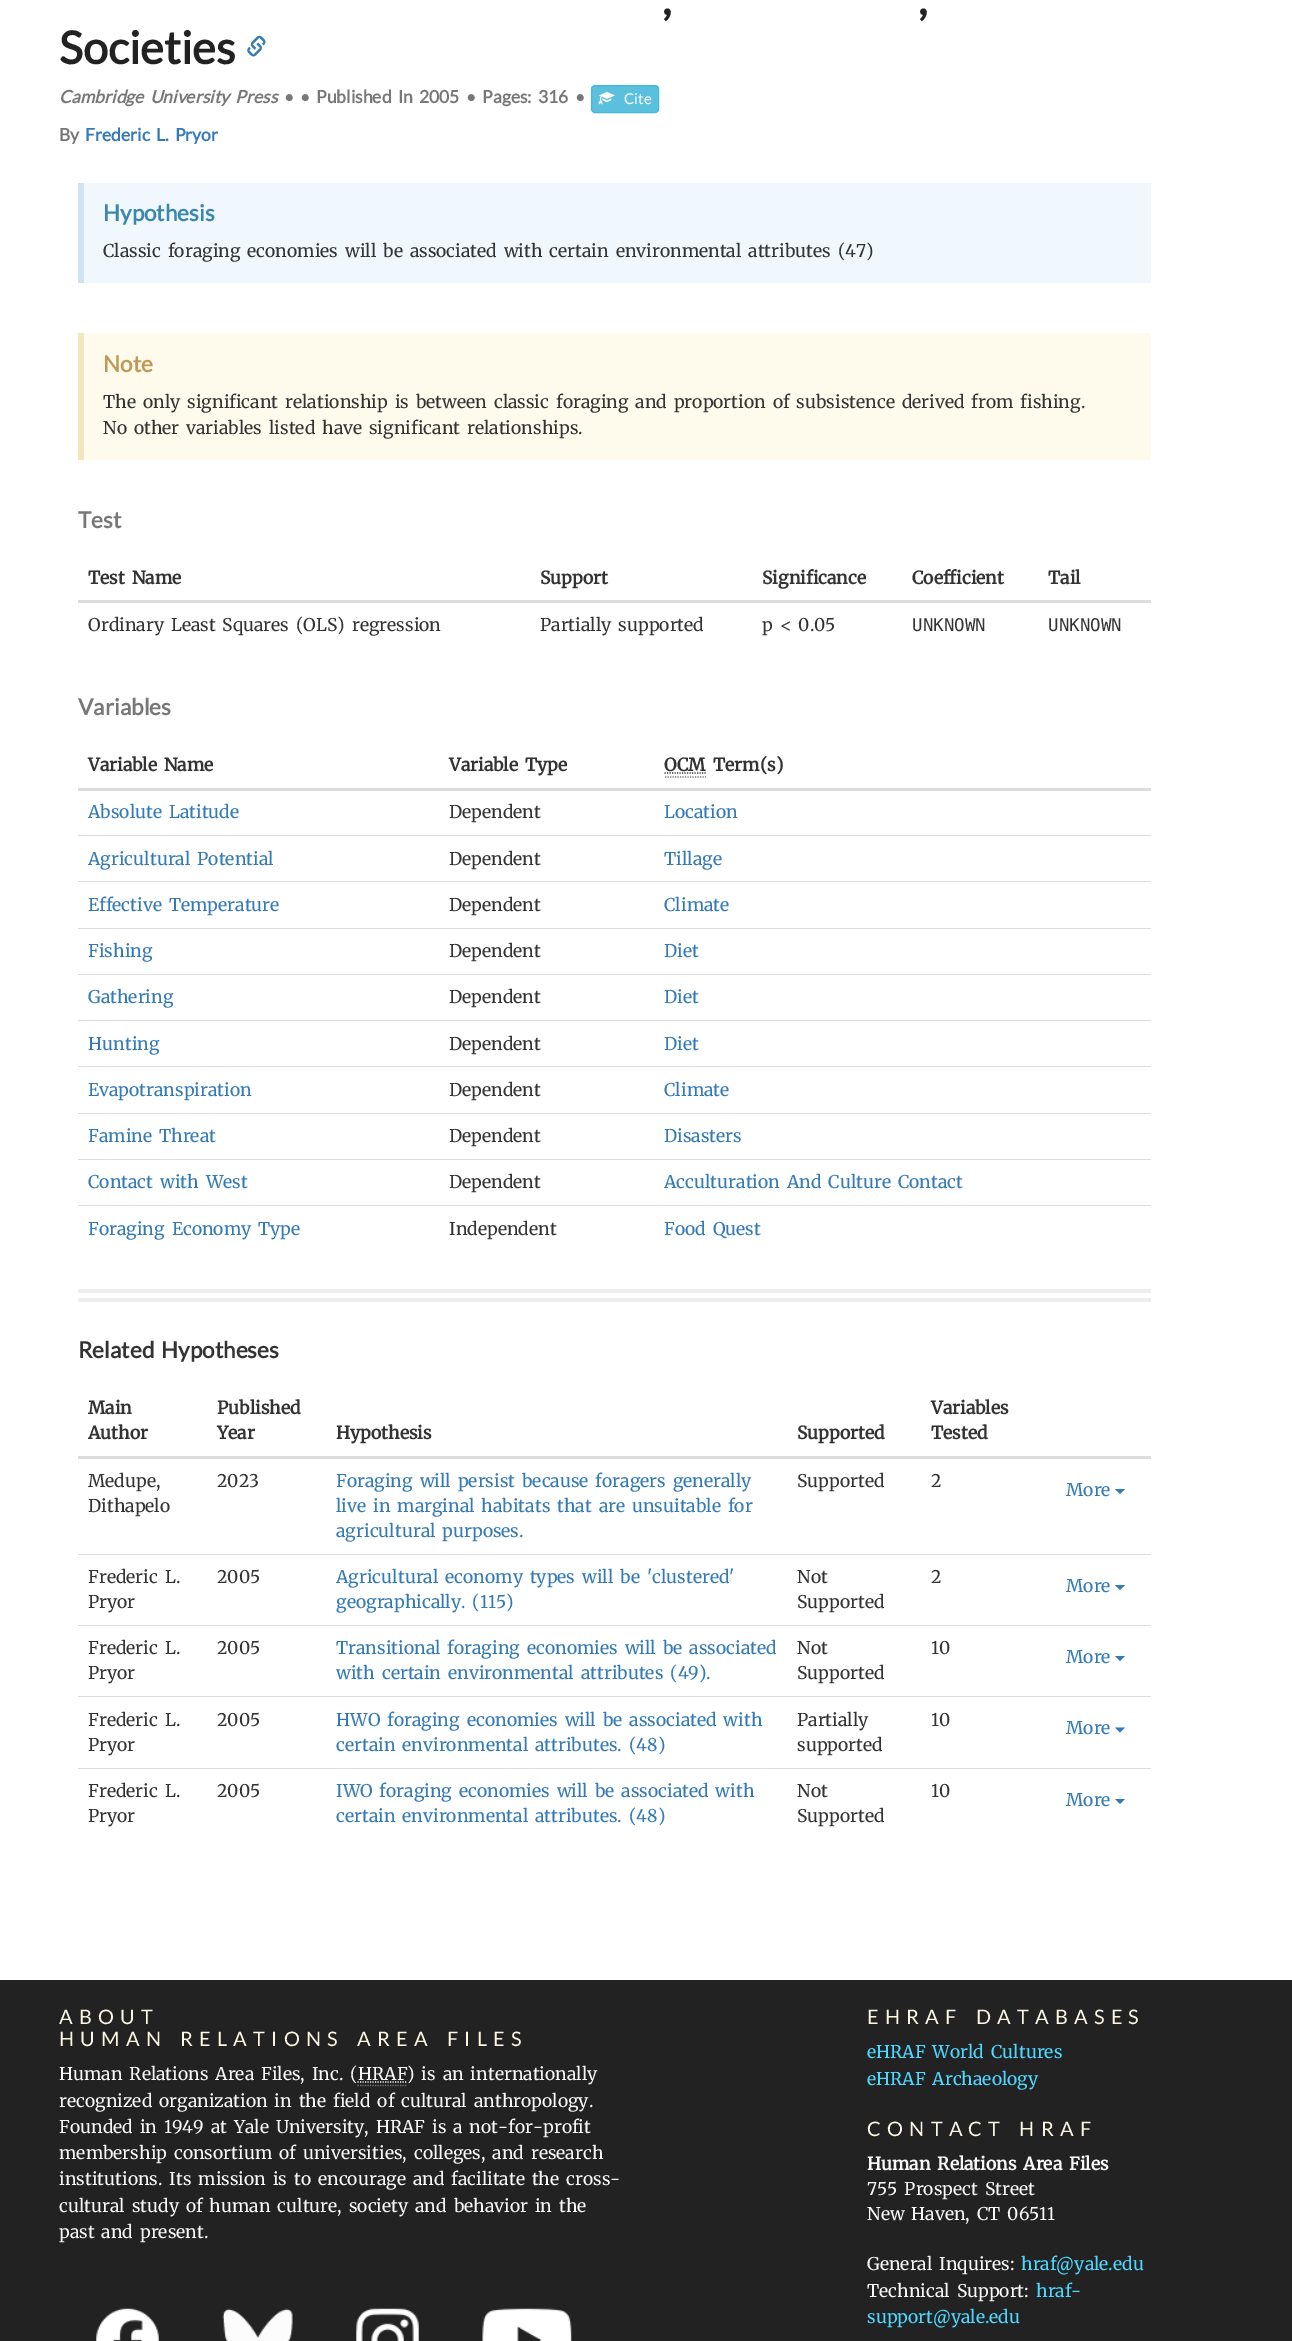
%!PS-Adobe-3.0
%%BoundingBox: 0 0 1292 2341
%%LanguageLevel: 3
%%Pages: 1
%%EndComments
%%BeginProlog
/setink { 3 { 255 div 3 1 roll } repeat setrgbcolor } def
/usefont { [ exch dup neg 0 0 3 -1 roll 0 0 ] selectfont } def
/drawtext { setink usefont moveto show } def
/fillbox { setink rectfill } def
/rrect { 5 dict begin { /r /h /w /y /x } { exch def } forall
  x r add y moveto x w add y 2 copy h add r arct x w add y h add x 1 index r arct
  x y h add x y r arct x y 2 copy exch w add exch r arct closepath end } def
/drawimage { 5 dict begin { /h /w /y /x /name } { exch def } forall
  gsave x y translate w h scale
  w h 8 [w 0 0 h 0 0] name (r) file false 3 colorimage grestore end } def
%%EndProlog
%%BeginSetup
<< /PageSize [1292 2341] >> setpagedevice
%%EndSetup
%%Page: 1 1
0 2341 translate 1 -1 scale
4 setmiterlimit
0 0 1292 2341 34 34 34 fillbox
0 0 1292 1980 255 255 255 fillbox
/Lato-Bold 45 usefont
34 34 34 setink
662 15 moveto 2.75 0 32 (,) widthshow
918 15 moveto 2.75 0 32 (,) widthshow
(Societies) 59 64 /Lato-Bold 45 34 34 34 drawtext
(assets/img1.rgb) 247 35 19 22 drawimage
/Lato-BoldItalic 17.5 usefont
119 119 119 setink
59 103 moveto 2.75 0 32 (Cambridge University Press) widthshow
(•) 284 103 /Lato-Bold 17.5 119 119 119 drawtext
(•) 300 103 /Lato-Bold 17.5 119 119 119 drawtext
316 103 moveto 2.75 0 32 (Published In) widthshow
(2005) 419 103 /Lato-Bold 17.5 119 119 119 drawtext
(•) 466 103 /Lato-Bold 17.5 119 119 119 drawtext
(Pages:) 482 103 /Lato-Bold 17.5 119 119 119 drawtext
(316) 538 103 /Lato-Bold 17.5 119 119 119 drawtext
(•) 575 103 /Lato-Bold 17.5 119 119 119 drawtext
91 192 222 setink
591.5 85.5 67 27 3.5 rrect gsave fill grestore
70 184 218 setink
stroke
(assets/img2.rgb) 598 91 17 14 drawimage
(Cite) 624 104 /Lato-Regular 15 255 255 255 drawtext
(By) 59 141 /Lato-Bold 17.5 119 119 119 drawtext
51 122 183 setink
85 141 moveto 2.75 0 32 (Frederic L. Pryor) widthshow
84 183 1067 100 240 247 253 fillbox
78 183 6 100 208 227 240 fillbox
(Hypothesis) 103 221 /Lato-Bold 22.5 58 135 173 drawtext
/Merriweather-Light 17.5 usefont
51 51 51 setink
103 257 moveto 2.75 0 32 (Classic foraging economies will be associated with certain environmental attributes \(47\)) widthshow
84 333 1067 127 254 251 237 fillbox
78 333 6 127 241 231 188 fillbox
(Note) 103 372 /Lato-Bold 22.5 192 152 83 drawtext
/Merriweather-Light 17.5 usefont
51 51 51 setink
103 408 moveto 2.75 0 32 (The only significant relationship is between classic foraging and proportion of subsistence derived from fishing.) widthshow
103 434 moveto 2.75 0 32 (No other variables listed have significant relationships.) widthshow
(Test) 78 528 /Lato-Bold 22.5 119 119 119 drawtext
/Merriweather-Bold 17.5 usefont
51 51 51 setink
88 584 moveto 2.75 0 32 (Test Name) widthshow
(Support) 540 584 /Merriweather-Bold 17.5 51 51 51 drawtext
(Significance) 762 584 /Merriweather-Bold 17.5 51 51 51 drawtext
(Coefficient) 912 584 /Merriweather-Bold 17.5 51 51 51 drawtext
78 600 1073 3 221 221 221 fillbox
(Tail) 1048 584 /Merriweather-Bold 17.5 51 51 51 drawtext
/Merriweather-Light 17.5 usefont
88 631 moveto 2.75 0 32 (Ordinary Least Squares \(OLS\) regression) widthshow
540 631 moveto 2.75 0 32 (Partially supported) widthshow
762 631 moveto 2.75 0 32 (p < 0.05) widthshow
(UNKNOWN) 912 631 /DejaVuSansMono-Regular 17.5 51 51 51 drawtext
(UNKNOWN) 1048 631 /DejaVuSansMono-Regular 17.5 51 51 51 drawtext
(Variables) 78 715 /Lato-Bold 22.5 119 119 119 drawtext
/Merriweather-Bold 17.5 usefont
51 51 51 setink
88 771 moveto 2.75 0 32 (Variable Name) widthshow
449 771 moveto 2.75 0 32 (Variable Type) widthshow
78 788 1073 3 221 221 221 fillbox
(OCM) 664 771 /Merriweather-Bold 17.5 51 51 51 drawtext
119 119 119 setink
1.2 setlinewidth
[1.25 1.25] 0 setdash
665 777 moveto 706 777 lineto stroke
51 51 51 setink
664.5 773 moveto 706 773 lineto stroke
(Term\(s\)) 713 771 /Merriweather-Bold 17.5 51 51 51 drawtext
/Merriweather-Light 17.5 usefont
51 122 183 setink
88 818 moveto 2.75 0 32 (Absolute Latitude) widthshow
(Dependent) 449 818 /Merriweather-Light 17.5 51 51 51 drawtext
(Location) 664 818 /Merriweather-Light 17.5 51 122 183 drawtext
88 865 moveto 2.75 0 32 (Agricultural Potential) widthshow
(Dependent) 449 865 /Merriweather-Light 17.5 51 51 51 drawtext
78 835 1073 1 221 221 221 fillbox
(Tillage) 664 865 /Merriweather-Light 17.5 51 122 183 drawtext
88 911 moveto 2.75 0 32 (Effective Temperature) widthshow
(Dependent) 449 911 /Merriweather-Light 17.5 51 51 51 drawtext
78 881 1073 1 221 221 221 fillbox
(Climate) 664 911 /Merriweather-Light 17.5 51 122 183 drawtext
(Fishing) 88 957 /Merriweather-Light 17.5 51 122 183 drawtext
(Dependent) 449 957 /Merriweather-Light 17.5 51 51 51 drawtext
78 928 1073 1 221 221 221 fillbox
(Diet) 664 957 /Merriweather-Light 17.5 51 122 183 drawtext
(Gathering) 88 1003 /Merriweather-Light 17.5 51 122 183 drawtext
(Dependent) 449 1003 /Merriweather-Light 17.5 51 51 51 drawtext
78 974 1073 1 221 221 221 fillbox
(Diet) 664 1003 /Merriweather-Light 17.5 51 122 183 drawtext
(Hunting) 88 1050 /Merriweather-Light 17.5 51 122 183 drawtext
(Dependent) 449 1050 /Merriweather-Light 17.5 51 51 51 drawtext
78 1020 1073 1 221 221 221 fillbox
(Diet) 664 1050 /Merriweather-Light 17.5 51 122 183 drawtext
(Evapotranspiration) 88 1096 /Merriweather-Light 17.5 51 122 183 drawtext
(Dependent) 449 1096 /Merriweather-Light 17.5 51 51 51 drawtext
78 1066 1073 1 221 221 221 fillbox
(Climate) 664 1096 /Merriweather-Light 17.5 51 122 183 drawtext
88 1142 moveto 2.75 0 32 (Famine Threat) widthshow
(Dependent) 449 1142 /Merriweather-Light 17.5 51 51 51 drawtext
78 1113 1073 1 221 221 221 fillbox
(Disasters) 664 1142 /Merriweather-Light 17.5 51 122 183 drawtext
88 1188 moveto 2.75 0 32 (Contact with West) widthshow
(Dependent) 449 1188 /Merriweather-Light 17.5 51 51 51 drawtext
78 1159 1073 1 221 221 221 fillbox
51 122 183 setink
664 1188 moveto 2.75 0 32 (Acculturation And Culture Contact) widthshow
88 1235 moveto 2.75 0 32 (Foraging Economy Type) widthshow
(Independent) 449 1235 /Merriweather-Light 17.5 51 51 51 drawtext
78 1205 1073 1 221 221 221 fillbox
51 122 183 setink
664 1235 moveto 2.75 0 32 (Food Quest) widthshow
78 1289 1073 4 238 238 238 fillbox
78 1298 1073 4 238 238 238 fillbox
/Lato-Bold 22.5 usefont
51 51 51 setink
78 1358 moveto 2.75 0 32 (Related Hypotheses) widthshow
(Main) 88 1414 /Merriweather-Bold 17.5 51 51 51 drawtext
(Author) 88 1439 /Merriweather-Bold 17.5 51 51 51 drawtext
(Published) 217 1414 /Merriweather-Bold 17.5 51 51 51 drawtext
(Year) 217 1439 /Merriweather-Bold 17.5 51 51 51 drawtext
(Hypothesis) 336 1439 /Merriweather-Bold 17.5 51 51 51 drawtext
(Supported) 797 1439 /Merriweather-Bold 17.5 51 51 51 drawtext
(Variables) 931 1414 /Merriweather-Bold 17.5 51 51 51 drawtext
(Tested) 931 1439 /Merriweather-Bold 17.5 51 51 51 drawtext
78 1456 1073 3 221 221 221 fillbox
(Medupe,) 88 1487 /Merriweather-Light 17.5 51 51 51 drawtext
(Dithapelo) 88 1512 /Merriweather-Light 17.5 51 51 51 drawtext
(2023) 217 1487 /Merriweather-Light 17.5 51 51 51 drawtext
51 122 183 setink
336 1487 moveto 2.75 0 32 (Foraging will persist because foragers generally) widthshow
336 1512 moveto 2.75 0 32 (live in marginal habitats that are unsuitable for) widthshow
336 1537 moveto 2.75 0 32 (agricultural purposes.) widthshow
(Supported) 797 1487 /Merriweather-Light 17.5 51 51 51 drawtext
(2) 931 1487 /Merriweather-Light 17.5 51 51 51 drawtext
(More) 1066 1496 /Merriweather-Light 17.5 51 122 183 drawtext
1115 1489 moveto 1125 1489 lineto 1120 1494 lineto closepath fill
51 51 51 setink
88 1583 moveto 2.75 0 32 (Frederic L.) widthshow
(Pryor) 88 1608 /Merriweather-Light 17.5 51 51 51 drawtext
(2005) 217 1583 /Merriweather-Light 17.5 51 51 51 drawtext
51 122 183 setink
336 1583 moveto 2.75 0 32 (Agricultural economy types will be 'clustered') widthshow
336 1608 moveto 2.75 0 32 (geographically. \(115\)) widthshow
(Not) 797 1583 /Merriweather-Light 17.5 51 51 51 drawtext
(Supported) 797 1608 /Merriweather-Light 17.5 51 51 51 drawtext
(2) 931 1583 /Merriweather-Light 17.5 51 51 51 drawtext
78 1554 1073 1 221 221 221 fillbox
(More) 1066 1592 /Merriweather-Light 17.5 51 122 183 drawtext
1115 1585 moveto 1125 1585 lineto 1120 1590 lineto closepath fill
51 51 51 setink
88 1654 moveto 2.75 0 32 (Frederic L.) widthshow
(Pryor) 88 1679 /Merriweather-Light 17.5 51 51 51 drawtext
(2005) 217 1654 /Merriweather-Light 17.5 51 51 51 drawtext
51 122 183 setink
336 1654 moveto 2.75 0 32 (Transitional foraging) widthshow
527 1654 moveto 2.75 0 32 (economies will be associated) widthshow
336 1679 moveto 2.75 0 32 (with certain environmental attributes \(49\).) widthshow
(Not) 797 1654 /Merriweather-Light 17.5 51 51 51 drawtext
(Supported) 797 1679 /Merriweather-Light 17.5 51 51 51 drawtext
(10) 931 1654 /Merriweather-Light 17.5 51 51 51 drawtext
78 1625 1073 1 221 221 221 fillbox
(More) 1066 1663 /Merriweather-Light 17.5 51 122 183 drawtext
1115 1656 moveto 1125 1656 lineto 1120 1661 lineto closepath fill
51 51 51 setink
88 1726 moveto 2.75 0 32 (Frederic L.) widthshow
(Pryor) 88 1751 /Merriweather-Light 17.5 51 51 51 drawtext
(2005) 217 1726 /Merriweather-Light 17.5 51 51 51 drawtext
51 122 183 setink
336 1726 moveto 2.75 0 32 (HWO foraging) widthshow
467 1726 moveto 2.75 0 32 (economies will be associated with) widthshow
336 1751 moveto 2.75 0 32 (certain environmental attributes. \(48\)) widthshow
(Partially) 797 1726 /Merriweather-Light 17.5 51 51 51 drawtext
(supported) 797 1751 /Merriweather-Light 17.5 51 51 51 drawtext
(10) 931 1726 /Merriweather-Light 17.5 51 51 51 drawtext
78 1696 1073 1 221 221 221 fillbox
(More) 1066 1734 /Merriweather-Light 17.5 51 122 183 drawtext
1115 1727.5 moveto 1125 1727.5 lineto 1120 1732.5 lineto closepath fill
51 51 51 setink
88 1797 moveto 2.75 0 32 (Frederic L.) widthshow
(Pryor) 88 1822 /Merriweather-Light 17.5 51 51 51 drawtext
(2005) 217 1797 /Merriweather-Light 17.5 51 51 51 drawtext
51 122 183 setink
336 1797 moveto 2.75 0 32 (IWO foraging) widthshow
459 1797 moveto 2.75 0 32 (economies will be associated with) widthshow
336 1822 moveto 2.75 0 32 (certain environmental attributes. \(48\)) widthshow
(Not) 797 1797 /Merriweather-Light 17.5 51 51 51 drawtext
(Supported) 797 1822 /Merriweather-Light 17.5 51 51 51 drawtext
(10) 931 1797 /Merriweather-Light 17.5 51 51 51 drawtext
78 1768 1073 1 221 221 221 fillbox
(More) 1066 1806 /Merriweather-Light 17.5 51 122 183 drawtext
1115 1799 moveto 1125 1799 lineto 1120 1804 lineto closepath fill
/Lato-Regular 20 usefont
252 248 227 setink
59 2024 moveto 6.25 0 (ABOUT) ashow
59 2046 moveto 2.75 0 32 6.25 0 (HUMAN RELATIONS AREA FILES) awidthshow
/Merriweather-Light 17.5 usefont
248 248 248 setink
59 2080 moveto 2.75 0 32 (Human Relations Area Files, Inc. \() widthshow
(HRAF) 358 2080 /Merriweather-Light 17.5 248 248 248 drawtext
119 119 119 setink
357.5 2085.5 moveto 407.5 2085.5 lineto stroke
248 248 248 setink
357.5 2082 moveto 407 2082 lineto stroke
407 2080 moveto 2.75 0 32 (\) is an internationally) widthshow
59 2107 moveto 2.75 0 32 (recognized organization in the field of cultural anthropology.) widthshow
59 2133 moveto 2.75 0 32 (Founded in 1949 at Yale University, HRAF is a not-for-profit) widthshow
59 2159 moveto 2.75 0 32 (membership consortium of universities, colleges, and research) widthshow
59 2185 moveto 2.75 0 32 (institutions. Its mission is to encourage and facilitate the cross-) widthshow
59 2212 moveto 2.75 0 32 (cultural study of human culture, society and behavior in the) widthshow
59 2238 moveto 2.75 0 32 (past and present.) widthshow
/Lato-Regular 20 usefont
252 248 227 setink
867 2024 moveto 2.75 0 32 6.25 0 (EHRAF DATABASES) awidthshow
/Merriweather-Light 17.5 usefont
79 216 255 setink
867 2058 moveto 2.75 0 32 (eHRAF World Cultures) widthshow
867 2085 moveto 2.75 0 32 (eHRAF Archaeology) widthshow
/Lato-Regular 20 usefont
252 248 227 setink
867 2136 moveto 2.75 0 32 6.25 0 (CONTACT HRAF) awidthshow
/Merriweather-Bold 17.5 usefont
248 248 248 setink
867 2170 moveto 2.75 0 32 (Human Relations Area Files) widthshow
/Merriweather-Light 17.5 usefont
867 2195 moveto 2.75 0 32 (755 Prospect Street) widthshow
867 2220 moveto 2.75 0 32 (New Haven, CT 06511) widthshow
867 2270 moveto 2.75 0 32 (General Inquires:) widthshow
(hraf@yale.edu) 1021 2270 /Merriweather-Light 17.5 79 216 255 drawtext
248 248 248 setink
867 2297 moveto 2.75 0 32 (Technical Support:) widthshow
(hraf-) 1036 2297 /Merriweather-Light 17.5 79 216 255 drawtext
(support@yale.edu) 867 2323 /Merriweather-Light 17.5 79 216 255 drawtext
(assets/img3.rgb) 96 2308 63 33 drawimage
(assets/img4.rgb) 222 2308 71 33 drawimage
(assets/img5.rgb) 356 2308 63 33 drawimage
(assets/img6.rgb) 482 2308 90 33 drawimage
showpage
%%EOF
